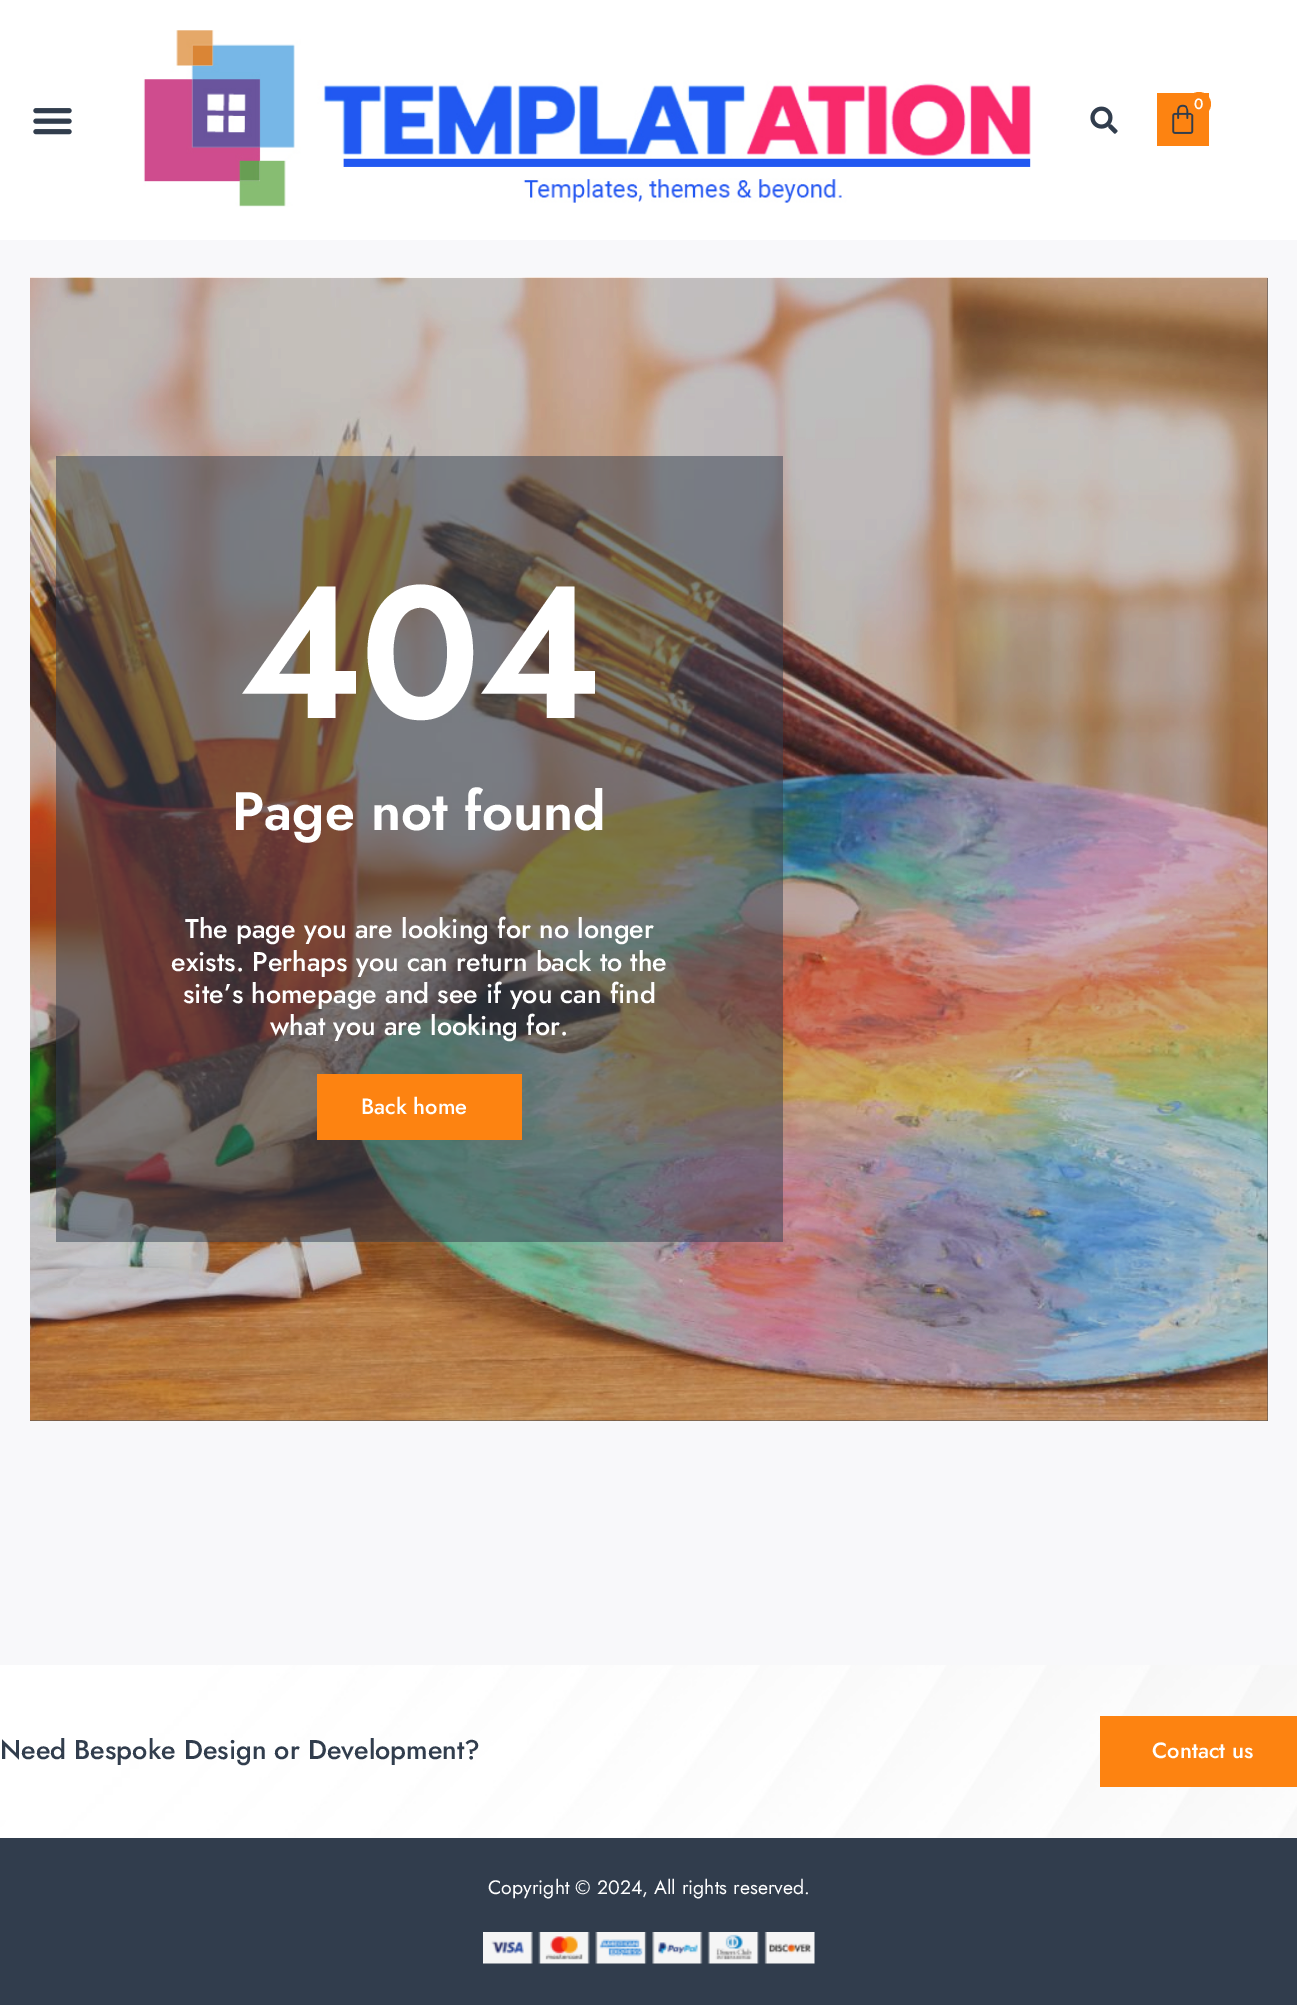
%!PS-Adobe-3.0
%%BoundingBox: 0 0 1297 2005
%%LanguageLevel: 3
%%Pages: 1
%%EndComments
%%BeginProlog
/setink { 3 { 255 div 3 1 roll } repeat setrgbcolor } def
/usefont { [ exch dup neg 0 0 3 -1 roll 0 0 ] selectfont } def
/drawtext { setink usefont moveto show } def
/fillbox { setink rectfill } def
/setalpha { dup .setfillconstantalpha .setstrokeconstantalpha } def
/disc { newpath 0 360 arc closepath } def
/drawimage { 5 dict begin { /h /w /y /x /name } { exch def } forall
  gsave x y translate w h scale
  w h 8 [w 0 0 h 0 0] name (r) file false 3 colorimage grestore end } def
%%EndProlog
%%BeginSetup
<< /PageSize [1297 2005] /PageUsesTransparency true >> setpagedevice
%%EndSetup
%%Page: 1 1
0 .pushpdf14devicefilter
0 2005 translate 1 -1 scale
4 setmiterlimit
0 0 1297 2005 248 248 250 fillbox
0 1837 1297 1 253 253 254 fillbox
0 0 1297 240 255 255 255 fillbox
(assets/img1.rgb) 33 108 39 27 drawimage
(assets/img2.rgb) 143 30 888 177 drawimage
1157 93 52 53 253 131 17 fillbox
(assets/img3.rgb) 1172 104 22 30 drawimage
1199 104 12 disc fill
(0) 1194 109 /Jost-Medium 15 255 255 255 drawtext
(assets/img4.rgb) 1090 106 28 28 drawimage
30 278 1238 1143 72 79 86 fillbox
(assets/img5.rgb) 30 277 1238 1144 drawimage
0.5 setalpha
56 456 727 786 49 61 77 fillbox
/Jost-SemiBold 188 usefont
1 setalpha
255 255 255 setink
239 718 moveto -3 0 (404) ashow
(Page not found) 232 830 /Jost-SemiBold 54 255 255 255 drawtext
(The page you are looking for no longer) 185 938 /Jost-Medium 27 255 255 255 drawtext
(exists. Perhaps you can return back to the) 171 971 /Jost-Medium 27 255 255 255 drawtext
(site’s homepage and see if you can find) 183 1003 /Jost-Medium 27 255 255 255 drawtext
(what you are looking for.) 270 1035 /Jost-Medium 27 255 255 255 drawtext
317 1074 205 66 253 131 17 fillbox
(Back home) 361 1114 /Jost-Medium 22 255 255 255 drawtext
(assets/img6.rgb) 0 1665 1297 173 drawimage
(Need Bespoke Design or Development?) 0 1759 /Jost-Medium 27 49 61 77 drawtext
1100 1716 197 71 253 131 17 fillbox
(Contact us) 1152 1758 /Jost-Medium 22 255 255 255 drawtext
0 1838 1297 167 49 61 77 fillbox
(Copyright © 2024, All rights reserved.) 488 1894 /Jost-Regular 19.5 255 255 255 drawtext
(assets/img7.rgb) 483 1932 332 32 drawimage
.poppdf14devicefilter showpage
%%EOF
